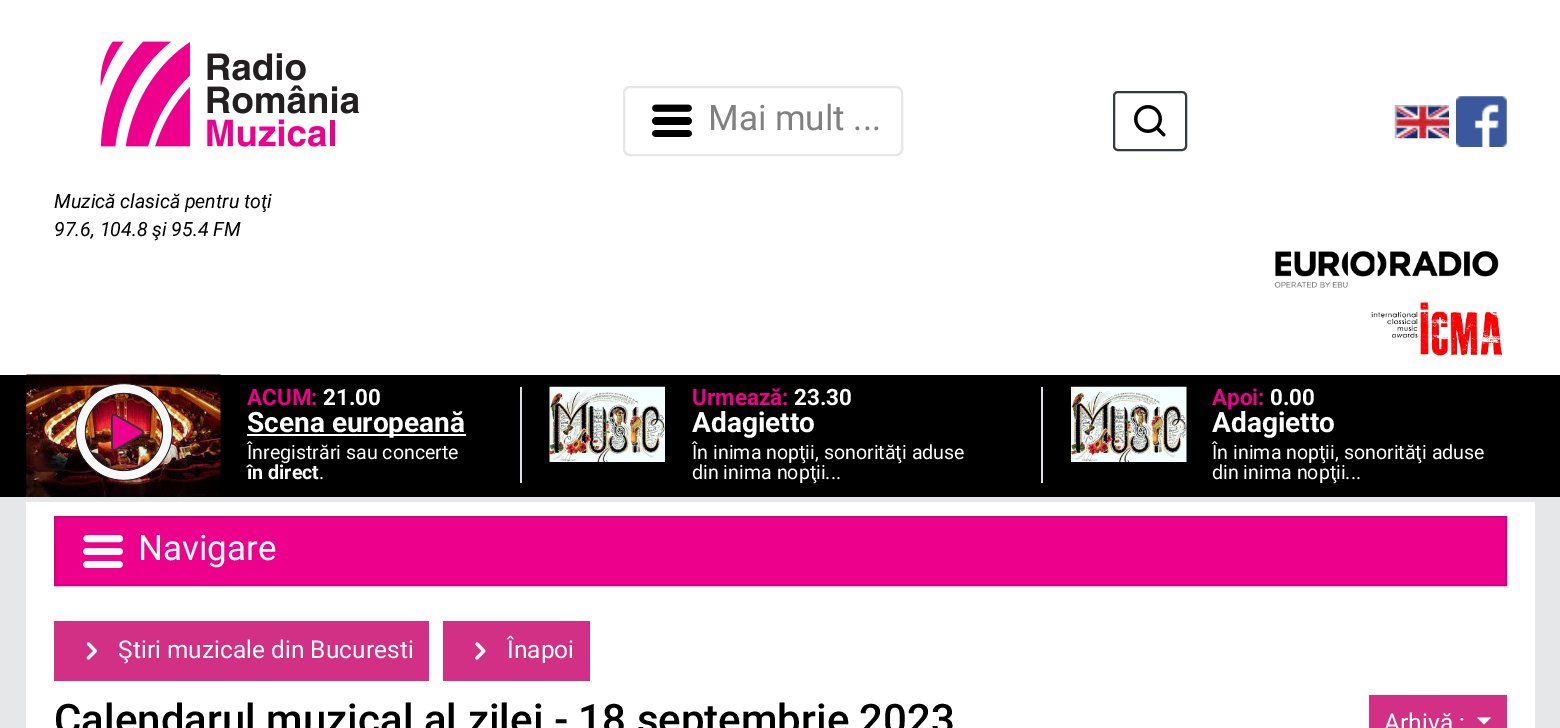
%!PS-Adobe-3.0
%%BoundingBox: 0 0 1560 728
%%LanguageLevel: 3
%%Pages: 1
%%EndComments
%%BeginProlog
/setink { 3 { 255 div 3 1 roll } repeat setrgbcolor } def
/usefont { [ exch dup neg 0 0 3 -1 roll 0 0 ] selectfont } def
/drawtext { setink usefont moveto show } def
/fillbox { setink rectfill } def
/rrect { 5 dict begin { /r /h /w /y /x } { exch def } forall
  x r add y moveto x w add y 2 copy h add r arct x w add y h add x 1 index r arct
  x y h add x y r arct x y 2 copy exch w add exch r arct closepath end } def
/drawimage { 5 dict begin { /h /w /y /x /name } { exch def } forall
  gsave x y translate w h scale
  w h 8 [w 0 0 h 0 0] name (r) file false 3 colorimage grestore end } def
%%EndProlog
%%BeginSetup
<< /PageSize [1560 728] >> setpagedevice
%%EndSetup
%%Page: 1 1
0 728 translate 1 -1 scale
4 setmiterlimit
0 0 1560 728 230 231 233 fillbox
0 0 1560 375 255 255 255 fillbox
230 230 230 setink
2 setlinewidth
624 87 278 68 6 rrect stroke
(assets/img1.rgb) 652 104 40 33 drawimage
(Mai mult ...) 708 130 /Roboto-Regular 35 128 128 128 drawtext
52 58 64 setink
1114 92 72 58 4 rrect stroke
(assets/img2.rgb) 1134 105 32 32 drawimage
(assets/img3.rgb) 1394 105 55 34 drawimage
(assets/img4.rgb) 1456 96 51 51 drawimage
(assets/img5.rgb) 100 41 260 106 drawimage
(Muzică clasică pentru toţi) 54 208 /Roboto-Italic 19.6 0 0 0 drawtext
(97.6, 104.8 şi 95.4 FM) 54 236 /Roboto-Italic 19.6 0 0 0 drawtext
(assets/img6.rgb) 1274 250 225 38 drawimage
(assets/img7.rgb) 1371 302 132 54 drawimage
0 375 1560 122 0 0 0 fillbox
(assets/img8.rgb) 26 374 195 123 drawimage
(assets/img9.rgb) 75 383 98 98 drawimage
(ACUM:) 247 405 /Roboto-Bold 22.5 237 0 140 drawtext
(21.00) 323 405 /Roboto-Bold 22.5 255 255 255 drawtext
247 434 219 2 255 255 255 fillbox
(Scena europeană) 247 432 /Roboto-Bold 28 255 255 255 drawtext
(Înregistrări sau concerte) 247 459 /Roboto-Regular 19.6 255 255 255 drawtext
(în direct) 247 479 /Roboto-Bold 19.6 255 255 255 drawtext
(.) 319 479 /Roboto-Regular 19.6 255 255 255 drawtext
520 387 2 96 222 226 230 fillbox
(assets/img10.rgb) 549 386 116 76 drawimage
(Urmează:) 692 405 /Roboto-Bold 22.5 237 0 140 drawtext
(23.30) 794 405 /Roboto-Bold 22.5 255 255 255 drawtext
(Adagietto) 692 432 /Roboto-Bold 28 255 255 255 drawtext
(În inima nopţii, sonorităţi aduse) 692 459 /Roboto-Regular 19.6 255 255 255 drawtext
(din inima nopţii...) 692 479 /Roboto-Regular 19.6 255 255 255 drawtext
1041 387 2 96 222 226 230 fillbox
(assets/img11.rgb) 1071 386 116 76 drawimage
(Apoi:) 1212 405 /Roboto-Bold 22.5 237 0 140 drawtext
(0.00) 1270 405 /Roboto-Bold 22.5 255 255 255 drawtext
(Adagietto) 1212 432 /Roboto-Bold 28 255 255 255 drawtext
(În inima nopţii, sonorităţi aduse) 1212 459 /Roboto-Regular 19.6 255 255 255 drawtext
(din inima nopţii...) 1212 479 /Roboto-Regular 19.6 255 255 255 drawtext
26 502 1509 226 255 255 255 fillbox
237 0 140 setink
55 517 moveto 1506 517 lineto 1506 585 lineto 55 585 lineto closepath gsave fill grestore
213 0 126 setink
stroke
(assets/img12.rgb) 83 535 41 33 drawimage
(Navigare) 138 560 /Roboto-Regular 35 255 255 255 drawtext
54 621 375 60 209 48 132 fillbox
(assets/img13.rgb) 86 642 12 18 drawimage
(Ştiri muzicale din Bucuresti) 118 658 /Roboto-Regular 24.5 255 255 255 drawtext
443 621 147 60 209 48 132 fillbox
(assets/img14.rgb) 475 642 11 18 drawimage
(Înapoi) 507 658 /Roboto-Regular 24.5 255 255 255 drawtext
(Calendarul muzical al zilei - 18 septembrie 2023) 54 734 /Roboto-Medium 42 0 0 0 drawtext
1369 695 138 33 209 48 132 fillbox
(Arhivă :) 1384 731 /Roboto-Regular 24.5 255 255 255 drawtext
1477 717.5 moveto 1491 717.5 lineto 1484 724.5 lineto closepath fill
showpage
%%EOF
